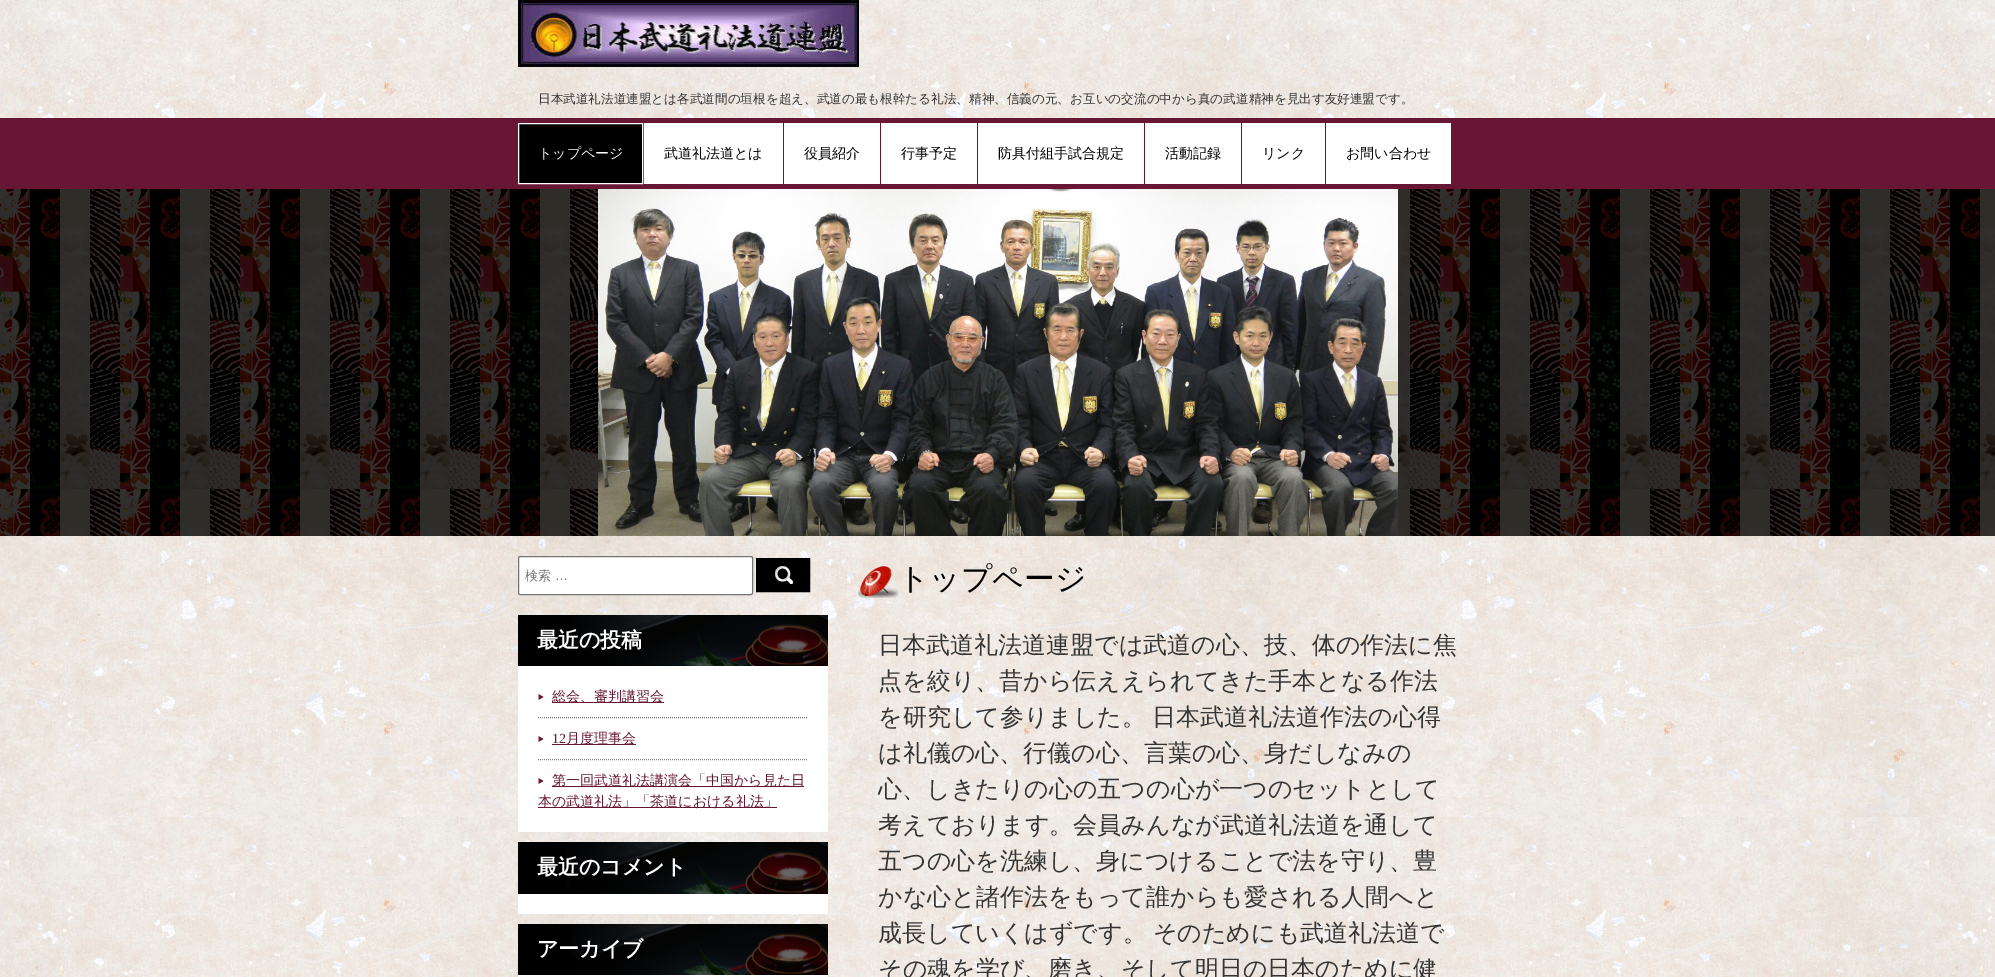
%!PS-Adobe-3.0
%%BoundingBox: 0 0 1995 977
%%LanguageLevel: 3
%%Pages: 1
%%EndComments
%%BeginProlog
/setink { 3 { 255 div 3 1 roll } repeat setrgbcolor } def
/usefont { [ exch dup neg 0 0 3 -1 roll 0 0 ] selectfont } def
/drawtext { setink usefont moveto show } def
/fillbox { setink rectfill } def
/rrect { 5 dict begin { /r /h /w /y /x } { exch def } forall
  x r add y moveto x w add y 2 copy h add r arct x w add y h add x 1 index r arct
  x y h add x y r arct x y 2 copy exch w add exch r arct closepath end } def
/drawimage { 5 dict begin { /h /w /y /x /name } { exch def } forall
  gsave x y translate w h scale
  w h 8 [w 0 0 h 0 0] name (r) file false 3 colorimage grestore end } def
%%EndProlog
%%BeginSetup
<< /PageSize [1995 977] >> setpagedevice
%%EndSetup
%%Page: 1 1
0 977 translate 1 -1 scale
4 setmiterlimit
0 0 1995 977 255 255 255 fillbox
(assets/img1.rgb) 0 0 1995 977 drawimage
(assets/img2.rgb) 518 0 341 67 drawimage
(日本武道礼法道連盟とは各武道間の垣根を超え、武道の最も根幹たる礼法、精神、信義の元、お互いの交流の中から真の武道精神を見出す友好連盟です。) 538 103 /WenQuanYiZenHei-Medium 12.6 52 52 52 drawtext
0 118 1995 71 103 22 51 fillbox
0 0 0 setink
518.5 123.5 moveto 642.5 123.5 lineto 642.5 183.5 lineto 518.5 183.5 lineto closepath gsave fill grestore
255 255 255 setink
stroke
(トップページ) 538 158 /WenQuanYiZenHei-Medium 14 255 255 255 drawtext
644 123 139 61 255 255 255 fillbox
(武道礼法道とは) 664 158 /WenQuanYiZenHei-Medium 14 0 0 0 drawtext
784 123 96 61 255 255 255 fillbox
(役員紹介) 804 158 /WenQuanYiZenHei-Medium 14 0 0 0 drawtext
881 123 96 61 255 255 255 fillbox
(行事予定) 901 158 /WenQuanYiZenHei-Medium 14 0 0 0 drawtext
978 123 166 61 255 255 255 fillbox
(防具付組手試合規定) 998 158 /WenQuanYiZenHei-Medium 14 0 0 0 drawtext
1145 123 96 61 255 255 255 fillbox
(活動記録) 1165 158 /WenQuanYiZenHei-Medium 14 0 0 0 drawtext
1242 123 83 61 255 255 255 fillbox
(リンク) 1262 158 /WenQuanYiZenHei-Medium 14 0 0 0 drawtext
1326 123 125 61 255 255 255 fillbox
(お問い合わせ) 1346 158 /WenQuanYiZenHei-Medium 14 0 0 0 drawtext
(assets/img3.rgb) 0 189 1995 347 drawimage
(assets/img4.rgb) 598 189 800 347 drawimage
255 255 255 setink
518.5 556.5 234 38 1.5 rrect gsave fill grestore
118 118 118 setink
stroke
(検索) 525 580 /WenQuanYiZenHei-Medium 13 117 117 117 drawtext
(…) 555 580 /LiberationSans-Regular 13 117 117 117 drawtext
(assets/img5.rgb) 758 560 50 30 drawimage
0 0 0 setink
2 setlinewidth
757 559 52 32 rectstroke
518 615 54 51 0 0 0 fillbox
(assets/img6.rgb) 572 615 256 51 drawimage
(最近の投稿) 537 647 /WenQuanYiZenHei-Bold 21 255 255 255 drawtext
518 666 310 166 255 255 255 fillbox
(assets/img7.rgb) 538 694 6 6 drawimage
552 702 112 1 103 22 51 fillbox
(総会、審判講習会) 552 701 /WenQuanYiZenHei-Medium 14 103 22 51 drawtext
123 123 123 setink
1 setlinewidth
[1 1] 0 setdash
538 717.5 moveto 808 717.5 lineto stroke
(assets/img7.rgb) 538 736 6 6 drawimage
(12) 552 743 /LiberationSerif-Regular 14 103 22 51 drawtext
552 744 84 1 103 22 51 fillbox
(月度理事会) 566 743 /WenQuanYiZenHei-Medium 14 103 22 51 drawtext
123 123 123 setink
538 759.5 moveto 808 759.5 lineto stroke
(assets/img7.rgb) 538 778 6 6 drawimage
552 786 252 1 103 22 51 fillbox
(第一回武道礼法講演会「中国から見た日) 552 785 /WenQuanYiZenHei-Medium 14 103 22 51 drawtext
538 807 239 1 103 22 51 fillbox
(本の武道礼法」「茶道における礼法」) 538 806 /WenQuanYiZenHei-Medium 14 103 22 51 drawtext
518 842 48 52 0 0 0 fillbox
(assets/img8.rgb) 566 842 262 52 drawimage
(最近のコメント) 537 874 /WenQuanYiZenHei-Bold 21 255 255 255 drawtext
518 894 310 20 255 255 255 fillbox
518 924 54 51 0 0 0 fillbox
(assets/img6.rgb) 572 924 256 51 drawimage
(アーカイブ) 537 956 /WenQuanYiZenHei-Bold 21 255 255 255 drawtext
518 975 310 2 255 255 255 fillbox
(assets/img9.rgb) 858 566 41 32 drawimage
(トップページ) 898 589 /WenQuanYiZenHei-Medium 30.75 0 0 0 drawtext
(日本武道礼法道連盟では武道の心、技、体の作法に焦) 878 653 /WenQuanYiZenHei-Medium 24 52 52 52 drawtext
(点を絞り、昔から伝ええられてきた手本となる作法) 878 689 /WenQuanYiZenHei-Medium 24 52 52 52 drawtext
878 725 moveto -1 0 32 (を研究して参りました。 日本武道礼法道作法の心得) widthshow
(は礼儀の心、行儀の心、言葉の心、身だしなみの) 878 761 /WenQuanYiZenHei-Medium 24 52 52 52 drawtext
(心、しきたりの心の五つの心が一つのセットとして) 878 797 /WenQuanYiZenHei-Medium 24 52 52 52 drawtext
(考えております。会員みんなが武道礼法道を通して) 878 833 /WenQuanYiZenHei-Medium 24 52 52 52 drawtext
(五つの心を洗練し、身につけることで法を守り、豊) 878 869 /WenQuanYiZenHei-Medium 24 52 52 52 drawtext
(かな心と諸作法をもって誰からも愛される人間へと) 878 905 /WenQuanYiZenHei-Medium 24 52 52 52 drawtext
878 941 moveto -1 0 32 (成長していくはずです。 そのためにも武道礼法道で) widthshow
(その魂を学び、磨き、そして明日の日本のために健) 878 977 /WenQuanYiZenHei-Medium 24 52 52 52 drawtext
showpage
%%EOF
